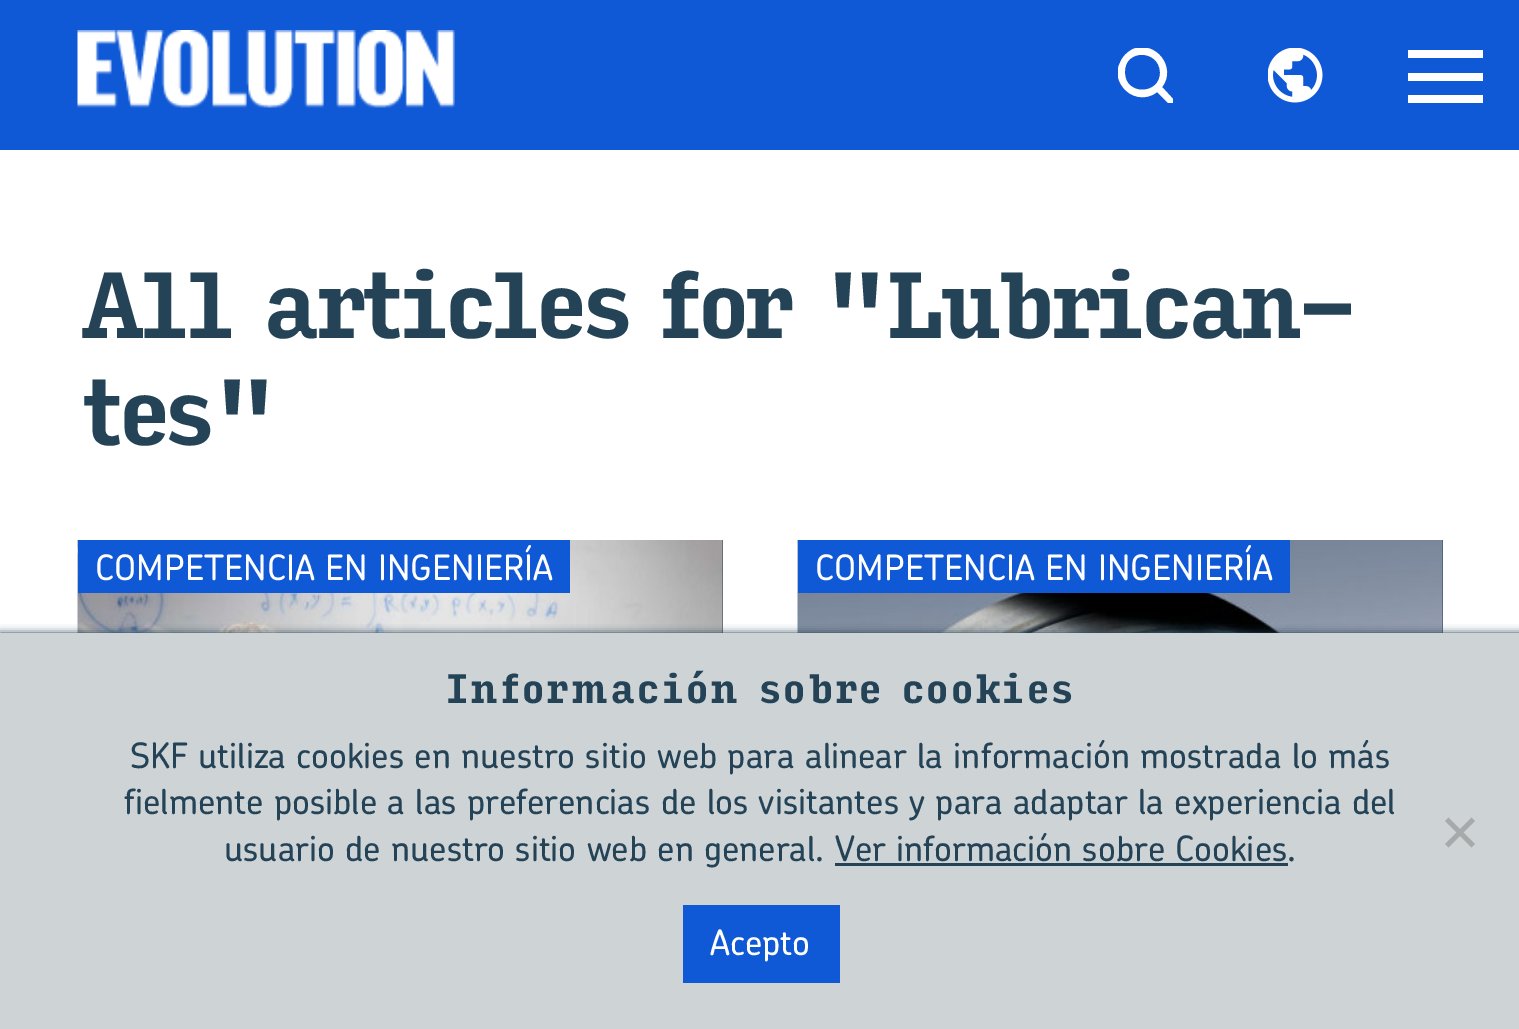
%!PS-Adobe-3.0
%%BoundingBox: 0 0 1519 1029
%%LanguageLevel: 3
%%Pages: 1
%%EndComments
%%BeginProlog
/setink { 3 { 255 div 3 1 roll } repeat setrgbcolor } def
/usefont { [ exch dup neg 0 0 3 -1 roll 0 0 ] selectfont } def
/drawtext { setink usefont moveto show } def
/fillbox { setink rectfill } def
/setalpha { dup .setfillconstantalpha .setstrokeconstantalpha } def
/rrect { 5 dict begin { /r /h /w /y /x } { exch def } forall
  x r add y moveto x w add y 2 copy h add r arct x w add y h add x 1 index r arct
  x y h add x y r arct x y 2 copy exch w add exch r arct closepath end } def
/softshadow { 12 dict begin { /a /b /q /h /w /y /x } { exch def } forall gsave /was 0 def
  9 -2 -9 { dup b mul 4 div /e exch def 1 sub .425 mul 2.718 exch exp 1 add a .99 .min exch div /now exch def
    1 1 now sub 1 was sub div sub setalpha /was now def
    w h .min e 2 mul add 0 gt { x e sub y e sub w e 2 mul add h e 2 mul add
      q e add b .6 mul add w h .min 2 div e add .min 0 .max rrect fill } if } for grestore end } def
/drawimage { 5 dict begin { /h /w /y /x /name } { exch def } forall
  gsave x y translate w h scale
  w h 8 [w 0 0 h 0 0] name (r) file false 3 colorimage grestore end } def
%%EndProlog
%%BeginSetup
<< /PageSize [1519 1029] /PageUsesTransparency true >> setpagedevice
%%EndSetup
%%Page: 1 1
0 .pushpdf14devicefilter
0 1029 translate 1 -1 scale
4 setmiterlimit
0 0 1519 1029 255 255 255 fillbox
0 0 1519 150 15 88 214 fillbox
(assets/img1.rgb) 77 30 378 78 drawimage
gsave
1118 48 55 55 rectclip
255 255 255 setink
1125 72 moveto 1124 49 1159 49 1160 72 curveto 1161 95 1125 96 1125 73 curveto closepath 1168 103 moveto 1171 106 1176 103 1174 100 curveto 1162 87 lineto 1177 68 1156 40 1133 49 curveto 1127 52 1122 57 1120 63 curveto 1116 70 1117 79 1122 86 curveto 1130 98 1146 101 1157 92 curveto closepath fill
grestore
(assets/img2.rgb) 1268 48 55 55 drawimage
1408 50 75 8 255 255 255 fillbox
1408 73 75 8 255 255 255 fillbox
1408 95 75 8 255 255 255 fillbox
/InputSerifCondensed-Bold 90 usefont
37 67 87 setink
78 338 moveto -10 0 (All articles for "Lubrican-) ashow
78 445 moveto -10 0 (tes") ashow
722 540 1 93 37 67 87 fillbox
(assets/img3.rgb) 77 540 646 93 drawimage
78 540 492 53 15 88 214 fillbox
(COMPETENCIA EN INGENIERÍA) 95 580 /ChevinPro-Medium 35 255 255 255 drawtext
1442 540 1 93 37 67 87 fillbox
(assets/img4.rgb) 797 540 646 93 drawimage
798 540 492 53 15 88 214 fillbox
(COMPETENCIA EN INGENIERÍA) 815 580 /ChevinPro-Medium 35 255 255 255 drawtext
37 67 87 setink
0 633 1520 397 0 4 1 softshadow
0 633 1519 396 206 212 214 fillbox
(Información sobre cookies) 445 703 /InputSerifCondensed-Bold 39.4 37 67 87 drawtext
(SKF utiliza cookies en nuestro sitio web para alinear la información mostrada lo más) 130 768 /ChevinPro-Medium 35 37 67 87 drawtext
(fielmente posible a las preferencias de los visitantes y para adaptar la experiencia del) 124 814 /ChevinPro-Medium 35 37 67 87 drawtext
(usuario de nuestro sitio web en general. Ver información sobre Cookies.) 224 861 /ChevinPro-Medium 35 37 67 87 drawtext
835 863 453 3 37 67 87 fillbox
167 170 171 setink
1471.5 817.5 moveto 1475 821 lineto 1448.5 847.5 lineto 1445 844 lineto closepath fill
1445 821 moveto 1448.5 817.5 lineto 1475 844 lineto 1471.5 847.5 lineto closepath fill
683 905 157 78 15 88 214 fillbox
(Acepto) 710 955 /ChevinPro-Medium 35 255 255 255 drawtext
.poppdf14devicefilter showpage
%%EOF
